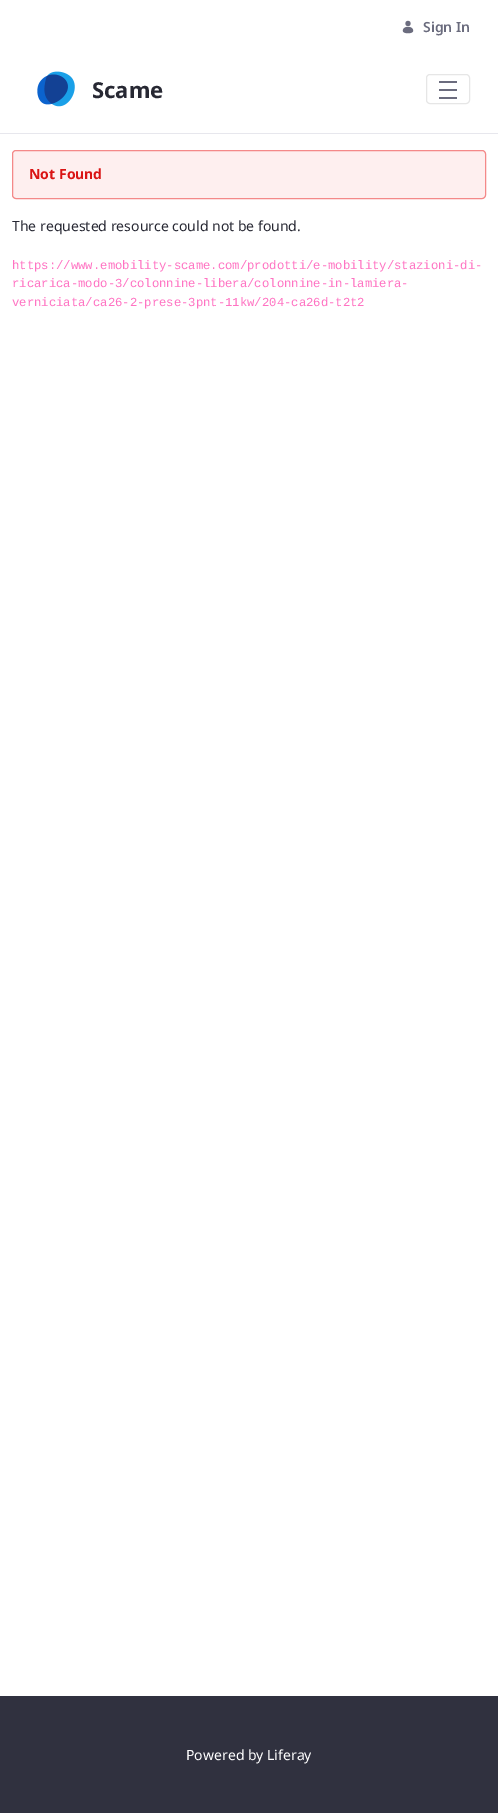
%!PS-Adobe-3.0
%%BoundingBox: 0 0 498 1813
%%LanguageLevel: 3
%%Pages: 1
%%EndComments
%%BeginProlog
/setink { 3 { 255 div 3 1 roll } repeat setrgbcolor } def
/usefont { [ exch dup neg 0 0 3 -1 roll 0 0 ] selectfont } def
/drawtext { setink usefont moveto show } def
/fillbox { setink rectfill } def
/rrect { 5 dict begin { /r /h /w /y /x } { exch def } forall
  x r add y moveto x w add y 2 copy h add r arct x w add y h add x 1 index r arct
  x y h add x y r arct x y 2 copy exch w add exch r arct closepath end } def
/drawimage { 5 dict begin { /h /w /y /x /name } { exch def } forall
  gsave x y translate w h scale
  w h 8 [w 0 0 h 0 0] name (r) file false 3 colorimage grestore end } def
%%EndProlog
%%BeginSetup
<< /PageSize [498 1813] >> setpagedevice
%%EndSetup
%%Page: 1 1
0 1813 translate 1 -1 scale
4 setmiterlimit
0 0 498 1813 255 255 255 fillbox
(assets/img1.rgb) 402 20 12 14 drawimage
(Sign In) 423 32 /NotoSans-SemiBold 14 107 108 126 drawtext
0 133 498 1 231 231 237 fillbox
(assets/img2.rgb) 37 71 38 36 drawimage
(Scame) 92 98 /NotoSans-Bold 22 39 40 51 drawtext
230 230 230 setink
426.5 74.5 43 29 3.5 rrect stroke
(assets/img3.rgb) 439 81 18 18 drawimage
254 239 239 setink
12.5 150.5 473 48 3.5 rrect gsave fill grestore
244 137 137 setink
stroke
(Not Found) 29 179 /NotoSans-Bold 14 218 20 20 drawtext
(The requested resource could not be found.) 12 231 /NotoSans-Regular 14 39 40 51 drawtext
(https://www.emobility-scame.com/prodotti/e-mobility/stazioni-di-) 12 269 /LiberationMono-Regular 12.25 255 115 195 drawtext
(ricarica-modo-3/colonnine-libera/colonnine-in-lamiera-) 12 287 /LiberationMono-Regular 12.25 255 115 195 drawtext
(verniciata/ca26-2-prese-3pnt-11kw/204-ca26d-t2t2) 12 306 /LiberationMono-Regular 12.25 255 115 195 drawtext
0 1696 498 117 48 49 63 fillbox
(Powered by Liferay) 186 1760 /NotoSans-Regular 14 255 255 255 drawtext
showpage
%%EOF
